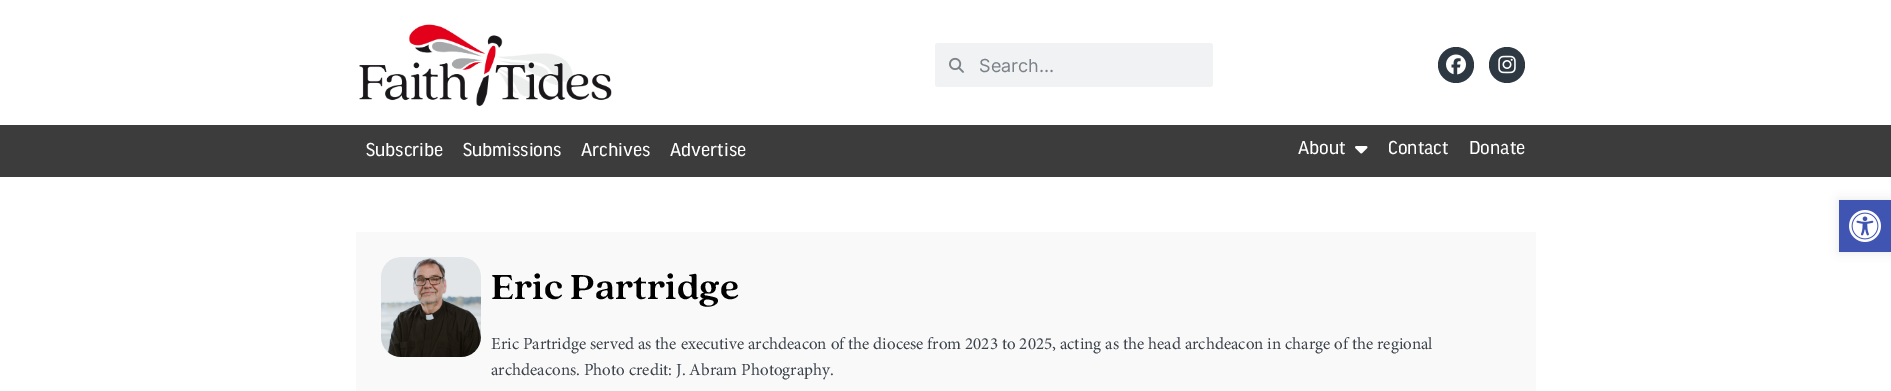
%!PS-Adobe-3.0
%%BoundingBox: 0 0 1891 391
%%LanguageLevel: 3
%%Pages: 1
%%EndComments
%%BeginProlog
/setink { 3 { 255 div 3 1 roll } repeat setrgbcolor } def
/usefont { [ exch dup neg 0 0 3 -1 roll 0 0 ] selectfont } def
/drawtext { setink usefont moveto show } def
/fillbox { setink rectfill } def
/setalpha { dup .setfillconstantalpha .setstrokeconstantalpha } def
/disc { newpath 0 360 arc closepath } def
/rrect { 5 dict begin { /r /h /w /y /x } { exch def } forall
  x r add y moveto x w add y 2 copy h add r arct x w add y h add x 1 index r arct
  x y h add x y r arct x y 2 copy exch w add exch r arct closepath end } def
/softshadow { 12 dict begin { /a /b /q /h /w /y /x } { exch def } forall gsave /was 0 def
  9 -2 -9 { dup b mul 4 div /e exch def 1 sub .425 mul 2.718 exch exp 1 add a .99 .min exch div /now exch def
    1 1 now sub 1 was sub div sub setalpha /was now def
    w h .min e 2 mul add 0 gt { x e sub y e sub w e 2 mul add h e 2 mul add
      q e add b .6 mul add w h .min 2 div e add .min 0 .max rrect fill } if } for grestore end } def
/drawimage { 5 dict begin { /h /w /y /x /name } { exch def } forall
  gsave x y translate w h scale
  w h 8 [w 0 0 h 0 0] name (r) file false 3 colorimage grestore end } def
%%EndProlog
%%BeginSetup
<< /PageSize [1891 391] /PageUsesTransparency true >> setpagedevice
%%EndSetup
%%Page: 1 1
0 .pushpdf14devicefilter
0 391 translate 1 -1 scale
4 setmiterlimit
0 0 1891 391 255 255 255 fillbox
(assets/img1.rgb) 359 24 253 83 drawimage
241 242 243 setink
935 43 278 44 3 rrect fill
(assets/img2.rgb) 949 57 15 16 drawimage
(Search...) 979 72 /Inter-Regular 18 124 130 137 drawtext
46 56 66 setink
1456 65 18 disc fill
(assets/img3.rgb) 1446 54 20 21 drawimage
1507 65 18 disc fill
(assets/img4.rgb) 1498 55 18 19 drawimage
0 125 1891 52 60 60 60 fillbox
(Subscribe) 366 156 /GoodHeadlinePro-Medium 20 255 255 255 drawtext
(Submissions) 463 156 /GoodHeadlinePro-Medium 20 255 255 255 drawtext
(Archives) 581 156 /GoodHeadlinePro-Medium 20 255 255 255 drawtext
(Advertise) 670 156 /GoodHeadlinePro-Medium 20 255 255 255 drawtext
(About) 1298 154 /GoodHeadlinePro-Medium 20 255 255 255 drawtext
(assets/img5.rgb) 1355 146 13 8 drawimage
(Contact) 1388 154 /GoodHeadlinePro-Medium 20 255 255 255 drawtext
(Donate) 1469 154 /GoodHeadlinePro-Medium 20 255 255 255 drawtext
0 0 0 setink
1839 200 52 52 0 5 0.1 softshadow
1839 200 52 52 64 84 178 fillbox
(assets/img6.rgb) 1849 210 32 32 drawimage
356 232 1180 159 249 249 249 fillbox
(assets/img7.rgb) 381 257 100 100 drawimage
(Eric Partridge) 491 299 /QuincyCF-Bold 38.5 0 0 0 drawtext
(Eric Partridge served as the executive archdeacon of the diocese from 2023 to 2025, acting as the head archdeacon in charge of the regional) 491 349 /Minion-Regular 17 60 67 74 drawtext
(archdeacons. Photo credit: J. Abram Photography.) 491 375 /Minion-Regular 17 60 67 74 drawtext
.poppdf14devicefilter showpage
%%EOF
